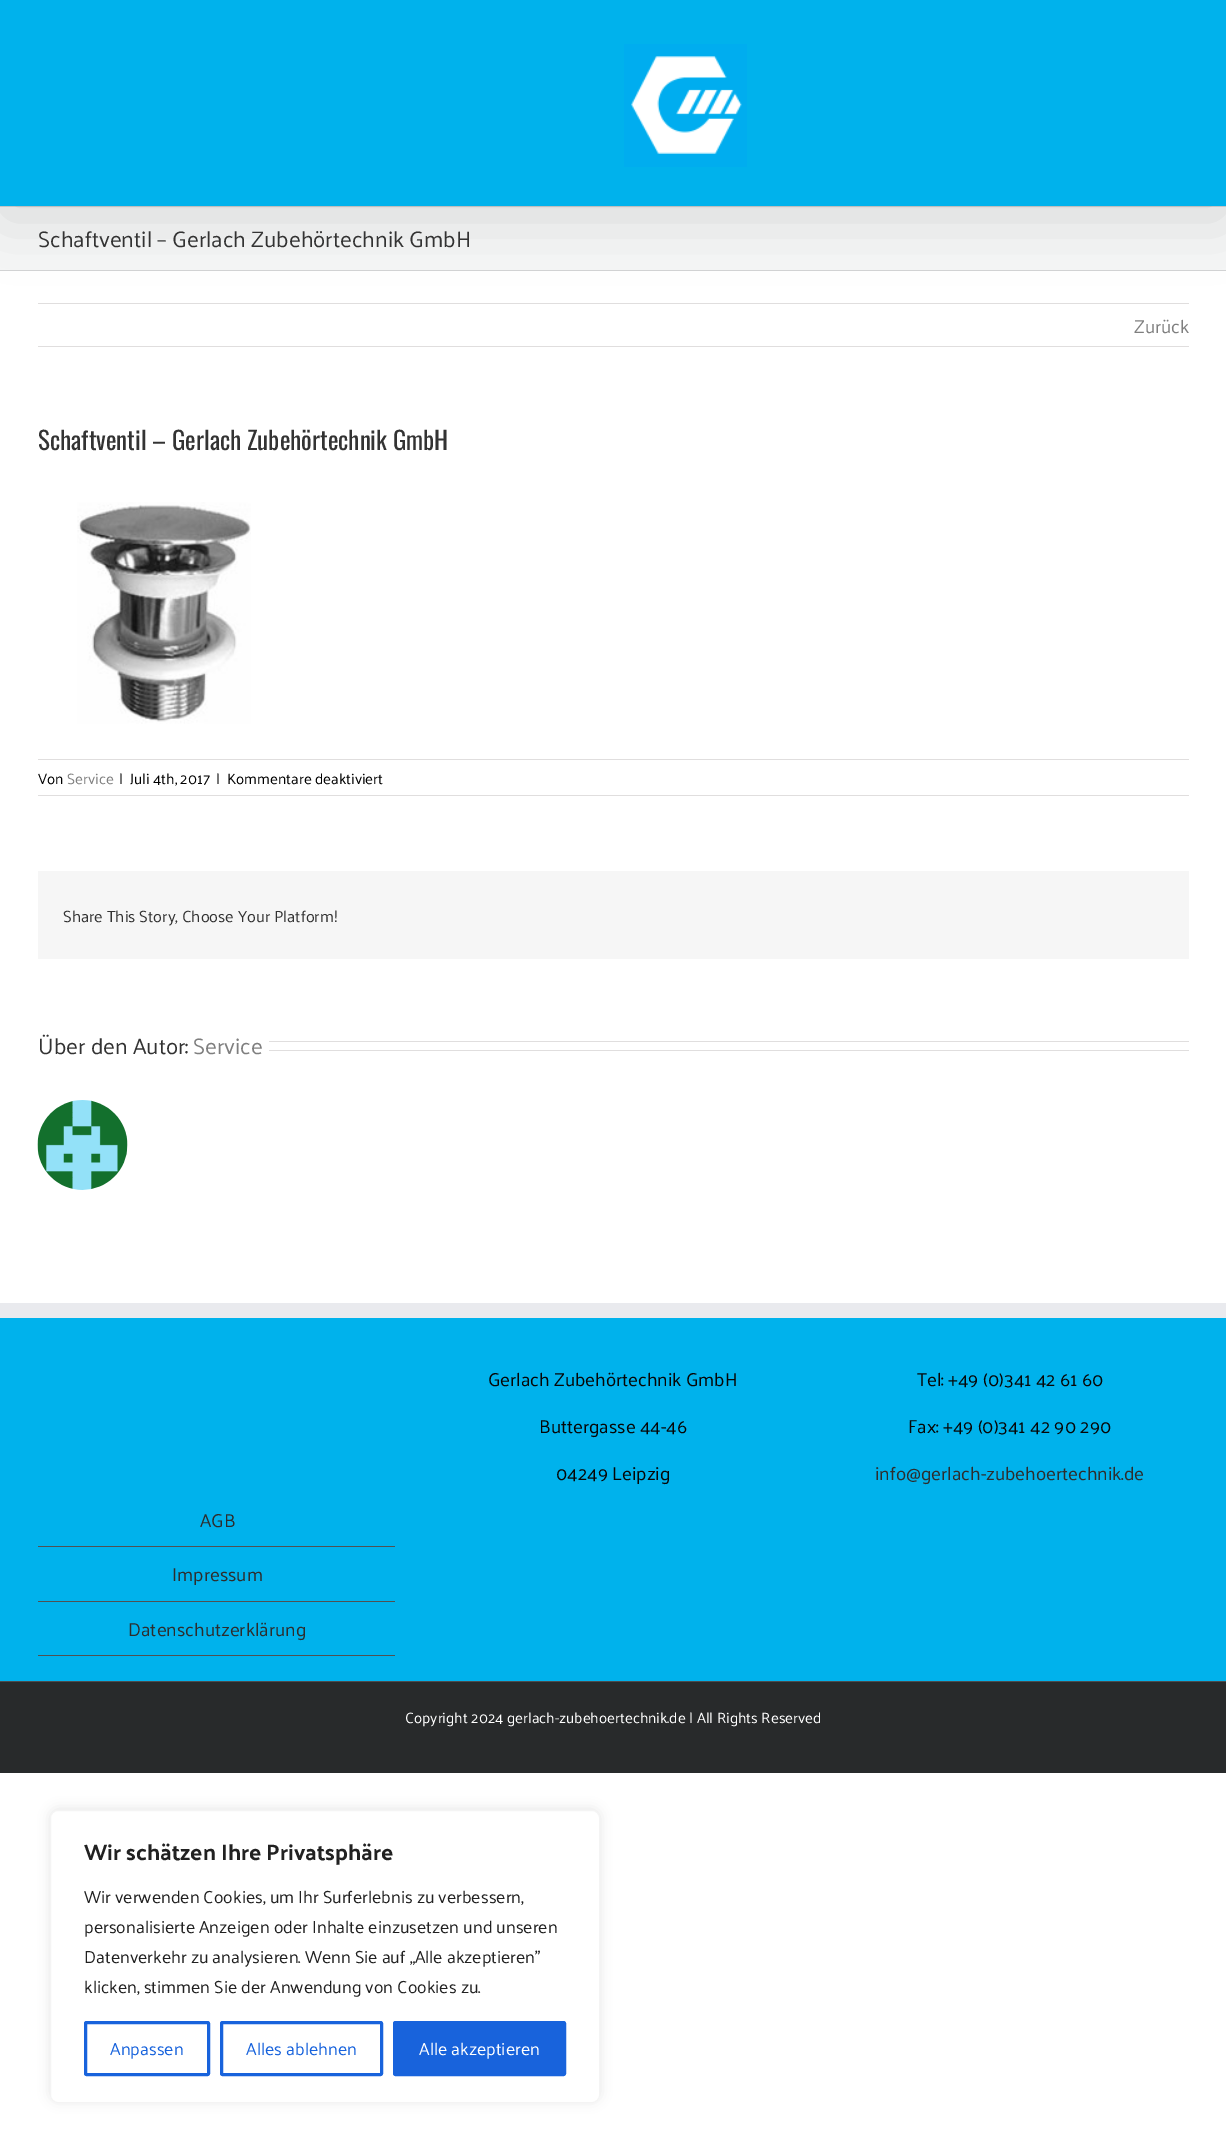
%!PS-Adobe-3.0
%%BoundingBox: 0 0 1226 2152
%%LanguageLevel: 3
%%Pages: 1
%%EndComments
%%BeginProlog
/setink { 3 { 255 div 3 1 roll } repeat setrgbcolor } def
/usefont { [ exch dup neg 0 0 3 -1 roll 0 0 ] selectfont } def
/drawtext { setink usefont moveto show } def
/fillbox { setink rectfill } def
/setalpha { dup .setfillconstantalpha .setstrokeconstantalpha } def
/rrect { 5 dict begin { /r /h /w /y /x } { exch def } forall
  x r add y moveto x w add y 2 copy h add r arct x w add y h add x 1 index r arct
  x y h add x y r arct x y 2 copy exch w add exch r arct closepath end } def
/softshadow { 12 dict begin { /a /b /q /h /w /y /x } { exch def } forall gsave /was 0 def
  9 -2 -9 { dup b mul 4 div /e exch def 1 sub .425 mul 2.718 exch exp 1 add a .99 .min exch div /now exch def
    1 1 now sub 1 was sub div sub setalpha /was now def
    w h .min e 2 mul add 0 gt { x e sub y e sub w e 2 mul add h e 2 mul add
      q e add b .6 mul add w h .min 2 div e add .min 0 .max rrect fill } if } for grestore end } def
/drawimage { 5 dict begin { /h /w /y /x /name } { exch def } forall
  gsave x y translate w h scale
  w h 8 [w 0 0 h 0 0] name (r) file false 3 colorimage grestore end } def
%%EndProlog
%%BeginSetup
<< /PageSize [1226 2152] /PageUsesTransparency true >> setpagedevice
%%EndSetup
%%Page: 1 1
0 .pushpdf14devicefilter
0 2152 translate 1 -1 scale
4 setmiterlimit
0 0 1226 2152 255 255 255 fillbox
0 207 1226 63 245 246 246 fillbox
0 206 1226 1 210 211 212 fillbox
0 270 1226 1 210 211 212 fillbox
38 303 1151 1 224 222 222 fillbox
0 0 0 setink
3 15 1221 201 0 31 0.14 softshadow
0 0 1226 206 0 178 236 fillbox
(assets/img1.rgb) 624 44 123 123 drawimage
(Schaftventil – Gerlach Zubehörtechnik GmbH) 38 247 /Palanquin-Regular 22.5 51 51 51 drawtext
38 346 1151 1 224 222 222 fillbox
(Zurück) 1134 333 /Palanquin-Regular 18.75 127 127 127 drawtext
(Schaftventil – Gerlach Zubehörtechnik GmbH) 38 450 /Oswald-Regular 25 51 51 51 drawtext
(assets/img2.rgb) 77 502 174 222 drawimage
38 759 1151 1 224 222 222 fillbox
38 795 1151 1 224 222 222 fillbox
(Von) 38 784 /Palanquin-Regular 15 0 0 0 drawtext
(Service) 67 784 /Palanquin-Regular 15 127 127 127 drawtext
(|) 119 784 /Palanquin-Regular 15 0 0 0 drawtext
(Juli 4th, 2017) 130 784 /Palanquin-Regular 15 0 0 0 drawtext
(|) 216 784 /Palanquin-Regular 15 0 0 0 drawtext
(Kommentare deaktiviert) 227 784 /Palanquin-Regular 15 0 0 0 drawtext
38 871 1151 88 246 246 246 fillbox
(Share This Story, Choose Your Platform!) 63 922 /Palanquin-Regular 16.25 51 51 51 drawtext
(Über den Autor:) 38 1054 /Palanquin-Regular 22.5 51 51 51 drawtext
(Service) 193 1054 /Palanquin-Regular 22.5 127 127 127 drawtext
269 1041 920 1 224 222 222 fillbox
269 1050 920 1 224 222 222 fillbox
(assets/img3.rgb) 37 1100 91 90 drawimage
0 1318 1226 363 0 178 236 fillbox
0 1303 1226 15 233 234 238 fillbox
(Gerlach Zubehörtechnik GmbH) 488 1386 /Palanquin-Regular 18.75 7 6 6 drawtext
(Buttergasse 44-46) 539 1433 /Palanquin-Regular 18.75 7 6 6 drawtext
(04249 Leipzig) 556 1480 /Palanquin-Regular 18.75 7 6 6 drawtext
(Tel: +49 \(0\)341 42 61 60) 917 1386 /Palanquin-Regular 18.75 7 6 6 drawtext
(Fax: +49 \(0\)341 42 90 290) 908 1433 /Palanquin-Regular 18.75 7 6 6 drawtext
(info@gerlach-zubehoertechnik.de) 875 1480 /Palanquin-Regular 18.75 45 45 45 drawtext
38 1546 357 1 80 81 82 fillbox
(AGB) 200 1527 /Palanquin-Regular 18.75 45 45 45 drawtext
38 1601 357 1 80 81 82 fillbox
(Impressum) 172 1581 /Palanquin-Regular 18.75 45 45 45 drawtext
38 1655 357 1 80 81 82 fillbox
(Datenschutzerklärung) 128 1636 /Palanquin-Regular 18.75 45 45 45 drawtext
0 1682 1226 91 40 42 43 fillbox
0 1681 1226 1 75 76 77 fillbox
(Copyright 2024 gerlach-zubehoertechnik.de | All Rights Reserved) 405 1723 /Palanquin-Regular 15 255 255 255 drawtext
172 171 171 setink
50 1809 550 292 8 6 0.3 softshadow
255 255 255 setink
50.5 1810.5 549 292 7.5 rrect gsave fill grestore
244 244 244 setink
stroke
(Wir schätzen Ihre Privatsphäre) 84 1860 /Palanquin-Bold 22.5 33 33 33 drawtext
(Wir verwenden Cookies, um Ihr Surferlebnis zu verbessern,) 84 1903 /Palanquin-Regular 17.5 33 33 33 drawtext
(personalisierte Anzeigen oder Inhalte einzusetzen und unseren) 84 1933 /Palanquin-Regular 17.5 33 33 33 drawtext
(Datenverkehr zu analysieren. Wenn Sie auf „Alle akzeptieren") 84 1963 /Palanquin-Regular 17.5 33 33 33 drawtext
(klicken, stimmen Sie der Anwendung von Cookies zu.) 84 1993 /Palanquin-Regular 17.5 33 33 33 drawtext
24 99 220 setink
3 setlinewidth
85.5 2022.5 123 52 1 rrect stroke
(Anpassen) 110 2055 /Palanquin-Regular 17.5 24 99 220 drawtext
221.5 2022.5 160 52 1 rrect stroke
(Alles ablehnen) 246 2055 /Palanquin-Regular 17.5 24 99 220 drawtext
394.5 2022.5 170 52 1 rrect gsave fill grestore
stroke
(Alle akzeptieren) 419 2055 /Palanquin-Regular 17.5 255 255 255 drawtext
.poppdf14devicefilter showpage
%%EOF
